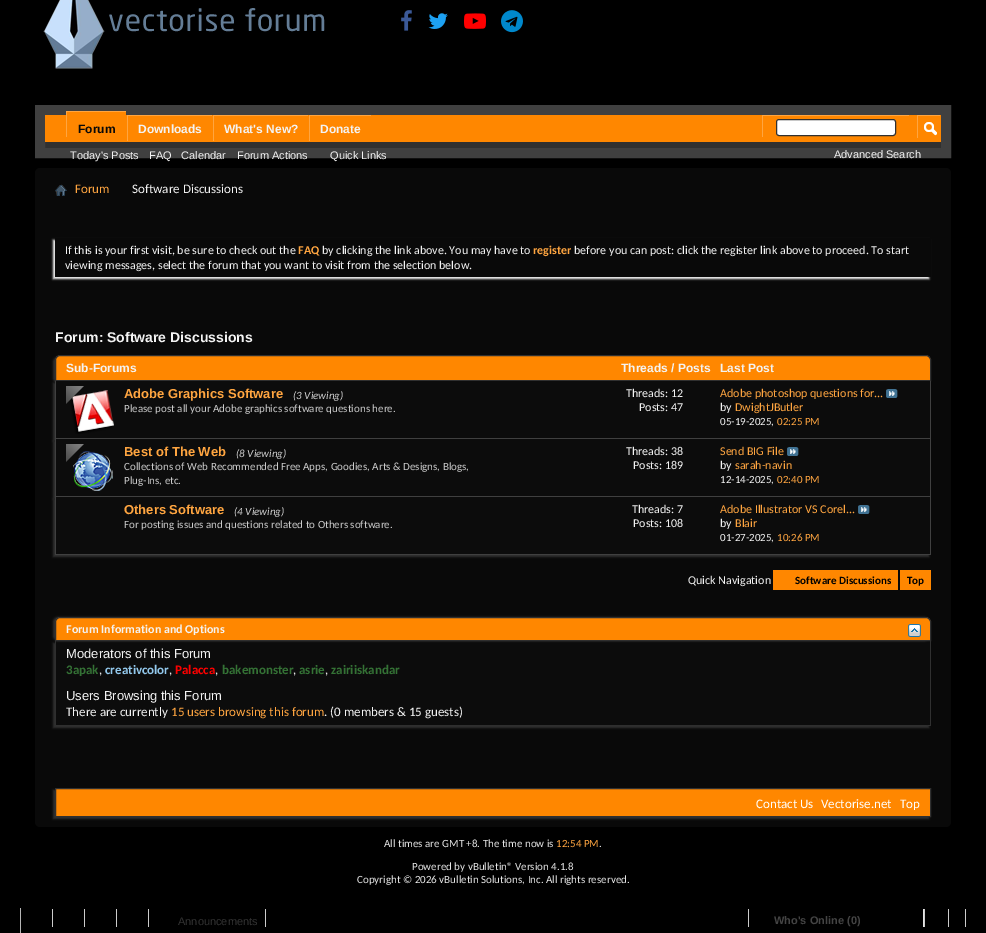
%!PS-Adobe-3.0
%%BoundingBox: 0 0 986 933
%%LanguageLevel: 3
%%Pages: 1
%%EndComments
%%BeginProlog
/setink { 3 { 255 div 3 1 roll } repeat setrgbcolor } def
/usefont { [ exch dup neg 0 0 3 -1 roll 0 0 ] selectfont } def
/drawtext { setink usefont moveto show } def
/fillbox { setink rectfill } def
/setalpha { dup .setfillconstantalpha .setstrokeconstantalpha } def
/rrect { 5 dict begin { /r /h /w /y /x } { exch def } forall
  x r add y moveto x w add y 2 copy h add r arct x w add y h add x 1 index r arct
  x y h add x y r arct x y 2 copy exch w add exch r arct closepath end } def
/softshadow { 12 dict begin { /a /b /q /h /w /y /x } { exch def } forall gsave /was 0 def
  9 -2 -9 { dup b mul 4 div /e exch def 1 sub .425 mul 2.718 exch exp 1 add a .99 .min exch div /now exch def
    1 1 now sub 1 was sub div sub setalpha /was now def
    w h .min e 2 mul add 0 gt { x e sub y e sub w e 2 mul add h e 2 mul add
      q e add b .6 mul add w h .min 2 div e add .min 0 .max rrect fill } if } for grestore end } def
/drawimage { 5 dict begin { /h /w /y /x /name } { exch def } forall
  gsave x y translate w h scale
  w h 8 [w 0 0 h 0 0] name (r) file false 3 colorimage grestore end } def
%%EndProlog
%%BeginSetup
<< /PageSize [986 933] /PageUsesTransparency true >> setpagedevice
%%EndSetup
%%Page: 1 1
0 .pushpdf14devicefilter
0 933 translate 1 -1 scale
4 setmiterlimit
0 0 986 933 0 0 0 fillbox
(assets/img1.rgb) 43 0 282 69 drawimage
(assets/img2.rgb) 401 10 11 21 drawimage
(assets/img3.rgb) 428 13 20 16 drawimage
(assets/img4.rgb) 464 13 22 16 drawimage
(assets/img5.rgb) 501 10 22 23 drawimage
48 48 48 setink
40 110 moveto 946 110 lineto 946 153 lineto 40 153 lineto closepath gsave fill grestore
64 64 64 setink
10 setlinewidth
stroke
45 115 896 27 255 135 0 fillbox
67 112 59 3 255 135 0 fillbox
66 111 60 1 255 165 64 fillbox
66 111 1 26 255 165 64 fillbox
(Forum) 78 133 /LiberationSans-Bold 12 9 9 9 drawtext
(Today's Posts) 70 159 /LiberationSans-Regular 11 243 243 243 drawtext
(FAQ) 149 159 /LiberationSans-Regular 11 243 243 243 drawtext
(Calendar) 181 159 /LiberationSans-Regular 11 243 243 243 drawtext
(Forum Actions) 237 159 /LiberationSans-Regular 11 243 243 243 drawtext
(Quick Links) 330 159 /LiberationSans-Regular 11 243 243 243 drawtext
127 115 85 1 255 165 64 fillbox
127 115 1 26 255 165 64 fillbox
(Downloads) 138 133 /LiberationSans-Bold 12 243 243 243 drawtext
213 115 95 1 255 165 64 fillbox
213 115 1 26 255 165 64 fillbox
(What's New?) 224 133 /LiberationSans-Bold 12 243 243 243 drawtext
309 115 62 1 255 165 64 fillbox
309 115 1 26 255 165 64 fillbox
(Donate) 320 133 /LiberationSans-Bold 12 243 243 243 drawtext
762 115 147 1 255 165 64 fillbox
762 115 1 22 255 165 64 fillbox
255 255 255 setink
776.5 119.5 119 16 2.5 rrect gsave fill grestore
48 48 48 setink
1 setlinewidth
stroke
917 115 23 1 255 165 64 fillbox
917 115 1 23 255 165 64 fillbox
(assets/img6.rgb) 924 122 13 14 drawimage
(Advanced Search) 834 158 /LiberationSans-Regular 11 243 243 243 drawtext
9 9 9 setink
35 168 916 659 5 rrect fill
(assets/img7.rgb) 55 184 12 12 drawimage
(Forum) 75 193 /Carlito-Regular 13 255 165 64 drawtext
(Software Discussions) 132 193 /Carlito-Regular 13 243 243 243 drawtext
gsave
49 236 moveto 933 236 lineto 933 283 lineto 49 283 lineto closepath 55 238 moveto 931 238 lineto 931 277 lineto 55 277 lineto closepath eoclip newpath
53 240 876 39 0 1 1 softshadow
grestore
(If this is your first visit, be sure to check out the) 65 254 /Carlito-Regular 12 243 243 243 drawtext
(FAQ) 298 254 /Carlito-Bold 12 255 165 64 drawtext
(by clicking the link above. You may have to) 322 254 /Carlito-Regular 12 243 243 243 drawtext
(register) 533 254 /Carlito-Bold 12 255 165 64 drawtext
(before you can post: click the register link above to proceed. To start) 574 254 /Carlito-Regular 12 243 243 243 drawtext
(viewing messages, select the forum that you want to visit from the selection below.) 65 269 /Carlito-Regular 12 243 243 243 drawtext
(Forum: Software Discussions) 55 342 /LiberationSans-Bold 14 243 243 243 drawtext
48 48 48 setink
53 357 876 26 5 1 1 softshadow
255 135 0 setink
60 355.5 moveto 926 355.5 lineto 928.5 355.5 930.5 357.5 930.5 360 curveto 930.5 380.5 lineto 55.5 380.5 lineto 55.5 360 lineto 55.5 357.5 57.5 355.5 60 355.5 curveto closepath gsave fill grestore
48 48 48 setink
stroke
(Sub-Forums) 66 372 /LiberationSans-Bold 12 243 243 243 drawtext
(Threads / Posts) 621 372 /LiberationSans-Bold 12 243 243 243 drawtext
(Last Post) 720 372 /LiberationSans-Bold 12 243 243 243 drawtext
48 48 48 setink
53 383 876 58 0 1 1 softshadow
56 381 874 57 12 12 12 fillbox
930 381 1 58 64 64 64 fillbox
55 438 876 1 64 64 64 fillbox
55 381 1 58 64 64 64 fillbox
(assets/img8.rgb) 66 386 48 48 drawimage
(Adobe Graphics Software) 124 398 /LiberationSans-Bold 13 255 165 64 drawtext
(\(3 Viewing\)) 293 399 /Carlito-Italic 11 204 204 204 drawtext
(Please post all your Adobe graphics software questions here.) 124 412 /Carlito-Regular 11 204 204 204 drawtext
(Threads: 12) 626 397 /Carlito-Regular 12 243 243 243 drawtext
(Posts: 47) 639 411 /Carlito-Regular 12 243 243 243 drawtext
(Adobe photoshop questions for...) 720 397 /Carlito-Regular 12 255 165 64 drawtext
(assets/img9.rgb) 886 389 12 9 drawimage
(by) 720 411 /Carlito-Regular 12 243 243 243 drawtext
(DwightJButler) 735 411 /Carlito-Regular 12 255 165 64 drawtext
(05-19-2025,) 720 425 /Carlito-Regular 11 243 243 243 drawtext
(02:25 PM) 777 425 /Carlito-Regular 11 255 165 64 drawtext
48 48 48 setink
53 441 876 58 0 1 1 softshadow
56 439 874 57 12 12 12 fillbox
930 439 1 58 64 64 64 fillbox
55 496 876 1 64 64 64 fillbox
55 439 1 58 64 64 64 fillbox
(assets/img10.rgb) 66 444 47 47 drawimage
(Best of The Web) 124 456 /LiberationSans-Bold 13 255 165 64 drawtext
(\(8 Viewing\)) 236 457 /Carlito-Italic 11 204 204 204 drawtext
(Collections of Web Recommended Free Apps, Goodies, Arts & Designs, Blogs,) 124 470 /Carlito-Regular 11 204 204 204 drawtext
(Plug-Ins, etc.) 124 484 /Carlito-Regular 11 204 204 204 drawtext
(Threads: 38) 626 455 /Carlito-Regular 12 243 243 243 drawtext
(Posts: 189) 633 469 /Carlito-Regular 12 243 243 243 drawtext
(Send BIG File) 720 455 /Carlito-Regular 12 255 165 64 drawtext
(assets/img9.rgb) 787 447 12 9 drawimage
(by) 720 469 /Carlito-Regular 12 243 243 243 drawtext
(sarah-navin) 735 469 /Carlito-Regular 12 255 165 64 drawtext
(12-14-2025,) 720 483 /Carlito-Regular 11 243 243 243 drawtext
(02:40 PM) 777 483 /Carlito-Regular 11 255 165 64 drawtext
48 48 48 setink
53 499 876 58 0 1 1 softshadow
56 497 874 57 12 12 12 fillbox
930 497 1 58 64 64 64 fillbox
55 554 876 1 64 64 64 fillbox
55 497 1 58 64 64 64 fillbox
(Others Software) 124 514 /LiberationSans-Bold 13 255 165 64 drawtext
(\(4 Viewing\)) 234 515 /Carlito-Italic 11 204 204 204 drawtext
(For posting issues and questions related to Others software.) 124 528 /Carlito-Regular 11 204 204 204 drawtext
(Threads: 7) 632 513 /Carlito-Regular 12 243 243 243 drawtext
(Posts: 108) 633 527 /Carlito-Regular 12 243 243 243 drawtext
(Adobe Illustrator VS Corel...) 720 513 /Carlito-Regular 12 255 165 64 drawtext
(assets/img9.rgb) 858 505 12 9 drawimage
(by) 720 527 /Carlito-Regular 12 243 243 243 drawtext
(Blair) 735 527 /Carlito-Regular 12 255 165 64 drawtext
(01-27-2025,) 720 541 /Carlito-Regular 11 243 243 243 drawtext
(10:26 PM) 777 541 /Carlito-Regular 11 255 165 64 drawtext
(Quick Navigation) 688 584 /Carlito-Regular 12 243 243 243 drawtext
773 570 125 20 255 135 0 fillbox
(Software Discussions) 795 584 /Carlito-Bold 11 0 0 0 drawtext
900 570 31 20 255 135 0 fillbox
(Top) 907 584 /Carlito-Bold 11 0 0 0 drawtext
48 48 48 setink
53 643 876 85 0 1 1 softshadow
56 642 874 83 12 12 12 fillbox
930 641 1 85 48 48 48 fillbox
55 641 1 3 48 48 48 fillbox
53 617 876 24 5 1 1 softshadow
255 135 0 setink
60 617.5 moveto 926 617.5 lineto 928.5 617.5 930.5 619.5 930.5 622 curveto 930.5 640.5 lineto 55.5 640.5 lineto 55.5 622 lineto 55.5 619.5 57.5 617.5 60 617.5 curveto closepath gsave fill grestore
48 48 48 setink
stroke
(Forum Information and Options) 66 633 /Carlito-Bold 12 243 243 243 drawtext
(assets/img11.rgb) 908 624 13 13 drawimage
928 725 3 1 48 48 48 fillbox
(Moderators of this Forum) 66 658 /LiberationSans-Regular 13 243 243 243 drawtext
(3apak) 66 674 /Carlito-Bold 13 52 114 53 drawtext
(,) 99 674 /Carlito-Regular 13 243 243 243 drawtext
(creativcolor) 105 674 /Carlito-Bold 13 147 201 237 drawtext
(,) 169 674 /Carlito-Regular 13 243 243 243 drawtext
(Palacca) 175 674 /Carlito-Bold 13 255 0 0 drawtext
(,) 215 674 /Carlito-Regular 13 243 243 243 drawtext
(bakemonster) 222 674 /Carlito-Bold 13 52 114 53 drawtext
(,) 293 674 /Carlito-Regular 13 243 243 243 drawtext
(asrie) 299 674 /Carlito-Bold 13 52 114 53 drawtext
(,) 325 674 /Carlito-Regular 13 243 243 243 drawtext
(zairiiskandar) 331 674 /Carlito-Bold 13 52 114 53 drawtext
(Users Browsing this Forum) 66 700 /LiberationSans-Regular 13 243 243 243 drawtext
(There are currently) 66 716 /Carlito-Regular 13 243 243 243 drawtext
(15 users browsing this forum) 171 716 /Carlito-Regular 13 255 165 64 drawtext
(. \(0 members & 15 guests\)) 324 716 /Carlito-Regular 13 243 243 243 drawtext
48 48 48 setink
53 790 876 29 0 1 1 softshadow
255 135 0 setink
55.5 788.5 moveto 930.5 788.5 lineto 930.5 816.5 lineto 55.5 816.5 lineto closepath gsave fill grestore
48 48 48 setink
stroke
(Contact Us) 756 808 /Carlito-Regular 13 255 255 255 drawtext
(Vectorise.net) 821 808 /Carlito-Regular 13 255 255 255 drawtext
(Top) 900 808 /Carlito-Regular 13 255 255 255 drawtext
(All times are GMT +8. The time now is) 384 847 /Carlito-Regular 11 230 230 230 drawtext
(12:54 PM) 556 847 /Carlito-Regular 11 255 165 64 drawtext
(.) 599 847 /Carlito-Regular 11 230 230 230 drawtext
(Powered by vBulletin® Version 4.1.8) 412 870 /Carlito-Regular 11 230 230 230 drawtext
(Copyright © 2026 vBulletin Solutions, Inc. All rights reserved.) 357 883 /Carlito-Regular 11 230 230 230 drawtext
20 908 1 25 181 181 181 fillbox
52 909 1 18 204 204 204 fillbox
84 909 1 18 204 204 204 fillbox
116 909 1 18 204 204 204 fillbox
148 909 1 18 204 204 204 fillbox
265 909 1 18 204 204 204 fillbox
(Announcements) 178 925 /LiberationSans-Regular 11 51 51 51 drawtext
923 909 1 18 229 229 229 fillbox
748 909 1 18 204 204 204 fillbox
(Who's Online \(0\)) 774 924 /LiberationSans-Bold 11 68 68 68 drawtext
948 909 1 18 204 204 204 fillbox
924 909 1 18 204 204 204 fillbox
965 909 1 18 204 204 204 fillbox
.poppdf14devicefilter showpage
%%EOF
